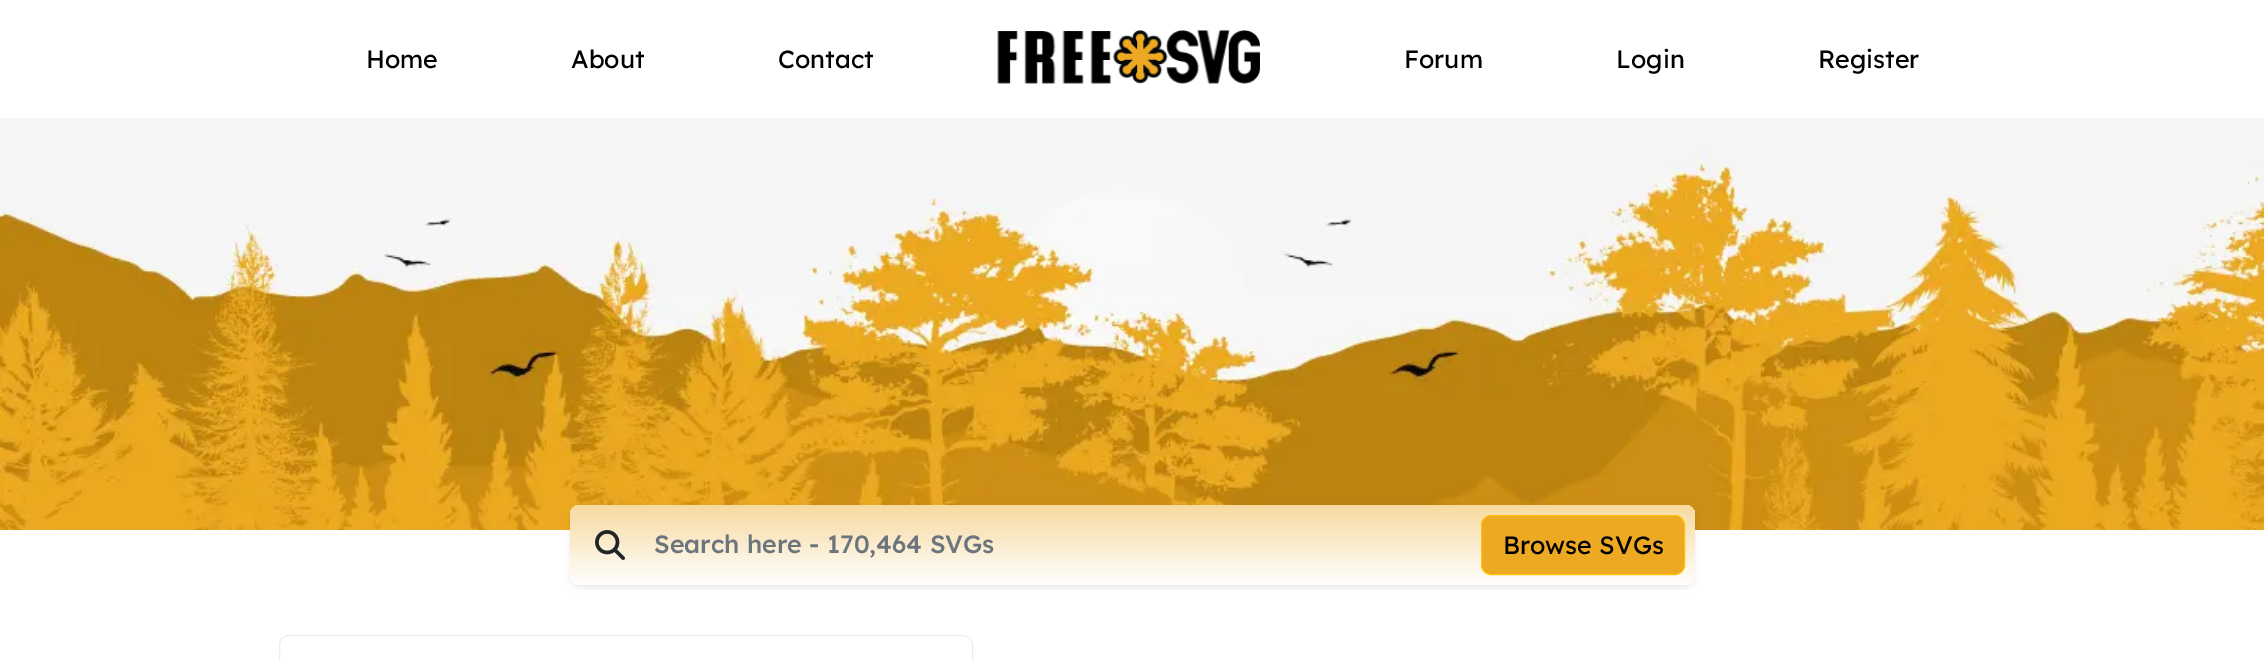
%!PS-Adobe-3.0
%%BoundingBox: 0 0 2264 661
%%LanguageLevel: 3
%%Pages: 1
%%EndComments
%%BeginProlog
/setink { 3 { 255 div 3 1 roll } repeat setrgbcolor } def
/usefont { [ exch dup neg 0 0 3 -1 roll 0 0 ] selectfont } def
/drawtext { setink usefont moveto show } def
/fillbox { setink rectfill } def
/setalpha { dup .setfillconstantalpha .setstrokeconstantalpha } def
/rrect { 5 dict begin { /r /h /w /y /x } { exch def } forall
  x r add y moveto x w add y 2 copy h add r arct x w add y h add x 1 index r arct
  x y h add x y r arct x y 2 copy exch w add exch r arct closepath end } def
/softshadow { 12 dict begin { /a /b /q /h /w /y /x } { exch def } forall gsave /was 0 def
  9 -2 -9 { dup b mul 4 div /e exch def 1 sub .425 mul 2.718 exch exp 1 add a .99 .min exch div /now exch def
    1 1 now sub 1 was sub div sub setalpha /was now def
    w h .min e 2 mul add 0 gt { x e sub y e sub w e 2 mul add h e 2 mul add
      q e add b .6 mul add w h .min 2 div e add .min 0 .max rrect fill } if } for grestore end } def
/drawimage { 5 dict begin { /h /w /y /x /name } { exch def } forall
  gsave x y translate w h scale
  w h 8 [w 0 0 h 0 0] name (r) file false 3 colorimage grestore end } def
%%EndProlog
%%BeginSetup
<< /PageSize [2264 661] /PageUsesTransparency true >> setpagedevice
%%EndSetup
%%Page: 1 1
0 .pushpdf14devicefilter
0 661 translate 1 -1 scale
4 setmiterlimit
0 0 2264 661 255 255 255 fillbox
(Home) 366 68 /Lexend-Regular 25 0 0 0 drawtext
(About) 571 68 /Lexend-Regular 25 0 0 0 drawtext
(Contact) 778 68 /Lexend-Regular 25 0 0 0 drawtext
(assets/img1.rgb) 997 30 263 54 drawimage
(Forum) 1404 68 /Lexend-Regular 25 0 0 0 drawtext
(Login) 1616 68 /Lexend-Regular 25 0 0 0 drawtext
(Register) 1818 68 /Lexend-Regular 25 0 0 0 drawtext
(assets/img2.rgb) 0 118 2264 412 drawimage
570 508 1125 80 10 2.5 0.07 softshadow
gsave 570 505 1125 80 10 rrect clip newpath
<< /ShadingType 2 /ColorSpace /DeviceRGB /Coords [1133 585 1133 401] /Extend [true true] /Function << /FunctionType 2 /Domain [0 1] /C0 [1 1 1] /C1 [0.929 0.663 0.133] /N 1 >> >> shfill grestore
(assets/img3.rgb) 595 530 30 30 drawimage
(Search here - 170,464 SVGs) 654 553 /Lexend-Medium 25 108 117 125 drawtext
237 169 34 setink
1481.5 515.5 203 59 9.5 rrect gsave fill grestore
255 193 7 setink
stroke
(Browse SVGs) 1503 554 /Lexend-Regular 25 0 0 0 drawtext
236 236 236 setink
279.5 635.5 693 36 9.5 rrect stroke
.poppdf14devicefilter showpage
%%EOF
